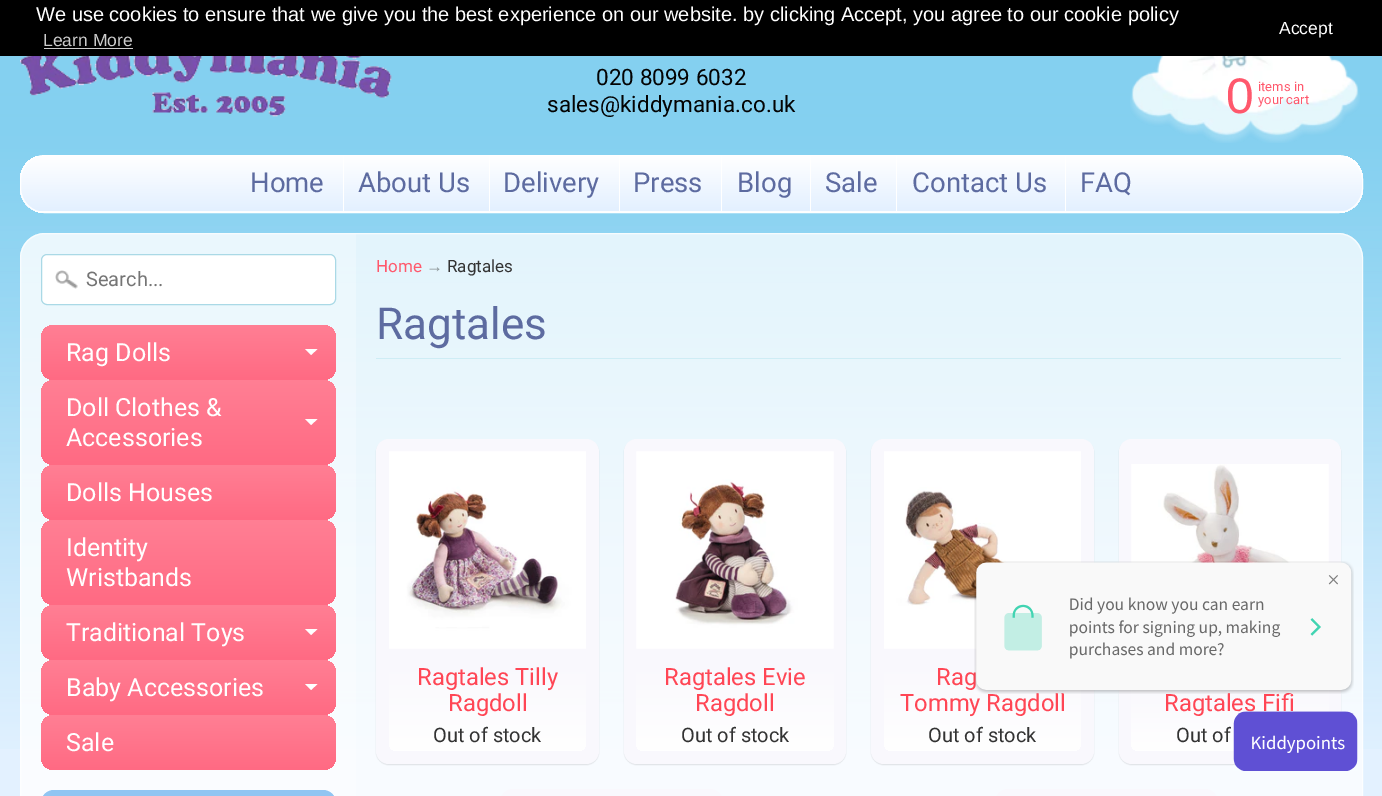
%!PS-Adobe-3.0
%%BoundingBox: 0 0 1382 796
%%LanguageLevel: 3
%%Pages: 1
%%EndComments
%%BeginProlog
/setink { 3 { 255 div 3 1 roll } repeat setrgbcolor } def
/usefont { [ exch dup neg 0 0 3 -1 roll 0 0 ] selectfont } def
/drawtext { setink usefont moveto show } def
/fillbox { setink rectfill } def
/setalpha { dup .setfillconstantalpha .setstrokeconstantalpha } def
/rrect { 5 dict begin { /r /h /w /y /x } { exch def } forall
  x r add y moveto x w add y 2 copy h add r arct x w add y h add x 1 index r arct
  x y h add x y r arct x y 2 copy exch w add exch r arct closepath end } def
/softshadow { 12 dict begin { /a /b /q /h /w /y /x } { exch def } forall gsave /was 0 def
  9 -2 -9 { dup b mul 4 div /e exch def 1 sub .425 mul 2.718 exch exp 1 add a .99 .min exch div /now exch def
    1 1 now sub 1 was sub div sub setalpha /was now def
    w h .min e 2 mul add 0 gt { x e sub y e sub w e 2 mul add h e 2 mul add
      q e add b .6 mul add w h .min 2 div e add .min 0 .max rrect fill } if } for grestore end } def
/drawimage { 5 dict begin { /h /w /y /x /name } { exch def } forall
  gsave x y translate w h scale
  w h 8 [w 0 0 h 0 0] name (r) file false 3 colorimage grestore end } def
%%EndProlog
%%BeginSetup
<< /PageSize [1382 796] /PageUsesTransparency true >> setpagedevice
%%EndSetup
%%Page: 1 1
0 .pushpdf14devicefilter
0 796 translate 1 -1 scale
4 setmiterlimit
0 0 1382 796 227 241 255 fillbox
(assets/img1.rgb) 0 56 1382 693 drawimage
0 0 1382 56 0 0 0 fillbox
(We use cookies to ensure that we give you the best experience on our website. by clicking Accept, you agree to our cookie policy) 36 21 /LiberationSans-Regular 20 255 255 255 drawtext
(Learn More) 43 46 /LiberationSans-Regular 17.5 204 204 204 drawtext
44 48 89 1 204 204 204 fillbox
(Accept) 1279 34 /LiberationSans-Regular 17.5 255 255 255 drawtext
(assets/img2.rgb) 20 56 372 61 drawimage
(020 8099 6032) 596 85 /Roboto-Regular 22.5 3 3 3 drawtext
(sales@kiddymania.co.uk) 547 112 /Roboto-Regular 22.5 3 3 3 drawtext
(assets/img3.rgb) 1130 56 230 87 drawimage
(0) 1226 113 /LiberationSans-Regular 50 255 88 108 drawtext
(items in) 1258 91 /Roboto-Regular 13 255 88 108 drawtext
(your cart) 1258 104 /Roboto-Regular 13 255 88 108 drawtext
gsave
20 155 1343 58 25 rrect clip newpath
gsave 20 156 moveto 1363 156 lineto 1363 211 lineto 20 211 lineto closepath clip newpath
<< /ShadingType 2 /ColorSpace /DeviceRGB /Coords [691 156 691 211] /Extend [true true] /Function << /FunctionType 2 /Domain [0 1] /C0 [1 1 1] /C1 [0.89 0.941 1] /N 1 >> >> shfill grestore
gsave 35 211 moveto 1348 211 lineto 1348 213 lineto 35 213 lineto closepath clip newpath
<< /ShadingType 2 /ColorSpace /DeviceRGB /Coords [691 211 691 266] /Extend [true true] /Function << /FunctionType 2 /Domain [0 1] /C0 [1 1 1] /C1 [0.89 0.941 1] /N 1 >> >> shfill grestore
grestore
255 255 255 setink
20.5 155.5 1342 57 24.5 rrect stroke
(Home) 250 192 /Roboto-Regular 27.5 93 107 160 drawtext
343 156 1 55 255 255 255 fillbox
(About Us) 358 192 /Roboto-Regular 27.5 93 107 160 drawtext
489 156 1 55 255 255 255 fillbox
(Delivery) 503 192 /Roboto-Regular 27.5 93 107 160 drawtext
619 156 1 55 255 255 255 fillbox
(Press) 633 192 /Roboto-Regular 27.5 93 107 160 drawtext
721 156 1 55 255 255 255 fillbox
(Blog) 737 192 /Roboto-Regular 27.5 93 107 160 drawtext
810 156 1 55 255 255 255 fillbox
(Sale) 825 192 /Roboto-Regular 27.5 93 107 160 drawtext
896 156 1 55 255 255 255 fillbox
(Contact Us) 912 192 /Roboto-Regular 27.5 93 107 160 drawtext
1065 156 1 55 255 255 255 fillbox
(FAQ) 1080 192 /Roboto-Regular 27.5 93 107 160 drawtext
0.75 setalpha
255 255 255 setink
20 233 1343 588 25 rrect fill
0.7 setalpha
20.5 233.5 1342 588 24.5 rrect stroke
0.25 setalpha
45 234 moveto 356 234 lineto 356 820 lineto 45 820 lineto 31.5 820 21 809.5 21 796 curveto 21 258 lineto 21 244.5 31.5 234 45 234 curveto closepath fill
1 setalpha
41 254 295 51 6 rrect fill
(assets/img4.rgb) 55 270 23 19 drawimage
170 217 230 setink
41.5 254.5 294 50 5.5 rrect stroke
(Search...) 86 286 /Roboto-Regular 20 117 117 117 drawtext
gsave 41 325 295 55 13 rrect clip newpath
<< /ShadingType 2 /ColorSpace /DeviceRGB /Coords [189 325 189 380] /Extend [true true] /Function << /FunctionType 2 /Domain [0 1] /C0 [1 0.498 0.58] /C1 [1 0.416 0.514] /N 1 >> >> shfill grestore
(Rag Dolls) 66 361 /Roboto-Regular 25 255 255 255 drawtext
305 349 moveto 317.5 349 lineto 311 355 lineto closepath fill
gsave 41 380 295 85 13 rrect clip newpath
<< /ShadingType 2 /ColorSpace /DeviceRGB /Coords [189 380 189 465] /Extend [true true] /Function << /FunctionType 2 /Domain [0 1] /C0 [1 0.498 0.58] /C1 [1 0.416 0.514] /N 1 >> >> shfill grestore
(Doll Clothes &) 66 416 /Roboto-Regular 25 255 255 255 drawtext
305 419 moveto 317.5 419 lineto 311 425 lineto closepath fill
(Accessories) 66 446 /Roboto-Regular 25 255 255 255 drawtext
gsave 41 465 295 55 13 rrect clip newpath
<< /ShadingType 2 /ColorSpace /DeviceRGB /Coords [189 465 189 520] /Extend [true true] /Function << /FunctionType 2 /Domain [0 1] /C0 [1 0.498 0.58] /C1 [1 0.416 0.514] /N 1 >> >> shfill grestore
(Dolls Houses) 66 501 /Roboto-Regular 25 255 255 255 drawtext
gsave 41 520 295 85 13 rrect clip newpath
<< /ShadingType 2 /ColorSpace /DeviceRGB /Coords [189 520 189 605] /Extend [true true] /Function << /FunctionType 2 /Domain [0 1] /C0 [1 0.498 0.58] /C1 [1 0.416 0.514] /N 1 >> >> shfill grestore
(Identity) 66 556 /Roboto-Regular 25 255 255 255 drawtext
(Wristbands) 66 586 /Roboto-Regular 25 255 255 255 drawtext
gsave 41 605 295 55 13 rrect clip newpath
<< /ShadingType 2 /ColorSpace /DeviceRGB /Coords [189 605 189 660] /Extend [true true] /Function << /FunctionType 2 /Domain [0 1] /C0 [1 0.498 0.58] /C1 [1 0.416 0.514] /N 1 >> >> shfill grestore
(Traditional Toys) 66 641 /Roboto-Regular 25 255 255 255 drawtext
305 629 moveto 317.5 629 lineto 311 635 lineto closepath fill
gsave 41 660 295 55 13 rrect clip newpath
<< /ShadingType 2 /ColorSpace /DeviceRGB /Coords [189 660 189 715] /Extend [true true] /Function << /FunctionType 2 /Domain [0 1] /C0 [1 0.498 0.58] /C1 [1 0.416 0.514] /N 1 >> >> shfill grestore
(Baby Accessories) 66 696 /Roboto-Regular 25 255 255 255 drawtext
305 684 moveto 317.5 684 lineto 311 690 lineto closepath fill
gsave 41 715 295 55 13 rrect clip newpath
<< /ShadingType 2 /ColorSpace /DeviceRGB /Coords [189 715 189 770] /Extend [true true] /Function << /FunctionType 2 /Domain [0 1] /C0 [1 0.498 0.58] /C1 [1 0.416 0.514] /N 1 >> >> shfill grestore
(Sale) 66 751 /Roboto-Regular 25 255 255 255 drawtext
145 197 242 setink
41 790 295 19 13 rrect fill
(Home) 376 272 /Roboto-Regular 17 255 88 108 drawtext
(→) 426 272 /LiberationSans-Regular 17 140 148 151 drawtext
(Ragtales) 447 272 /Roboto-Regular 17 51 51 51 drawtext
376 358 965 1 206 237 245 fillbox
(Ragtales) 376 339 /Roboto-Regular 44 93 107 160 drawtext
0 0 0 setink
376 440 223 325 13 0.5 0.1 softshadow
249 248 253 setink
376 439 223 325 13 rrect fill
(assets/img5.rgb) 389 451 197 198 drawimage
gsave 389 659 197 92 8 rrect clip newpath
<< /ShadingType 2 /ColorSpace /DeviceRGB /Coords [488 659 488 751] /Extend [true true] /Function << /FunctionType 2 /Domain [0 1] /C0 [0.976 0.973 0.992] /C1 [1 1 1] /N 1 >> >> shfill grestore
(Ragtales Tilly) 417 685 /Roboto-Regular 23.75 255 70 85 drawtext
(Ragdoll) 448 711 /Roboto-Regular 23.75 255 70 85 drawtext
(Out of stock) 433 742 /Roboto-Regular 20 51 51 51 drawtext
0 0 0 setink
624 440 222 325 13 0.5 0.1 softshadow
249 248 253 setink
624 439 222 325 13 rrect fill
(assets/img6.rgb) 636 451 198 198 drawimage
gsave 636 659 198 92 8 rrect clip newpath
<< /ShadingType 2 /ColorSpace /DeviceRGB /Coords [735 659 735 751] /Extend [true true] /Function << /FunctionType 2 /Domain [0 1] /C0 [0.976 0.973 0.992] /C1 [1 1 1] /N 1 >> >> shfill grestore
(Ragtales Evie) 664 685 /Roboto-Regular 23.75 255 70 85 drawtext
(Ragdoll) 695 711 /Roboto-Regular 23.75 255 70 85 drawtext
(Out of stock) 681 742 /Roboto-Regular 20 51 51 51 drawtext
0 0 0 setink
871 440 223 325 13 0.5 0.1 softshadow
249 248 253 setink
871 439 223 325 13 rrect fill
(assets/img7.rgb) 884 451 197 198 drawimage
gsave 884 659 197 92 8 rrect clip newpath
<< /ShadingType 2 /ColorSpace /DeviceRGB /Coords [983 659 983 751] /Extend [true true] /Function << /FunctionType 2 /Domain [0 1] /C0 [0.976 0.973 0.992] /C1 [1 1 1] /N 1 >> >> shfill grestore
(Rag) 936 685 /Roboto-Regular 23.75 255 70 85 drawtext
(Tommy Ragdoll) 900 711 /Roboto-Regular 23.75 255 70 85 drawtext
(Out of stock) 928 742 /Roboto-Regular 20 51 51 51 drawtext
0 0 0 setink
1119 440 222 325 13 0.5 0.1 softshadow
249 248 253 setink
1119 439 222 325 13 rrect fill
(assets/img8.rgb) 1131 464 198 99 drawimage
gsave 1131 685 198 66 8 rrect clip newpath
<< /ShadingType 2 /ColorSpace /DeviceRGB /Coords [1230 685 1230 751] /Extend [true true] /Function << /FunctionType 2 /Domain [0 1] /C0 [0.976 0.973 0.992] /C1 [1 1 1] /N 1 >> >> shfill grestore
(Ragtales Fifi) 1164 711 /Roboto-Regular 23.75 255 70 85 drawtext
(Out of) 1176 742 /Roboto-Regular 20 51 51 51 drawtext
249 248 253 setink
500 789 223 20 13 rrect fill
995 789 223 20 13 rrect fill
(assets/img9.rgb) 974 561 380 133 drawimage
(assets/img10.rgb) 1233 711 125 60 drawimage
.poppdf14devicefilter showpage
%%EOF
